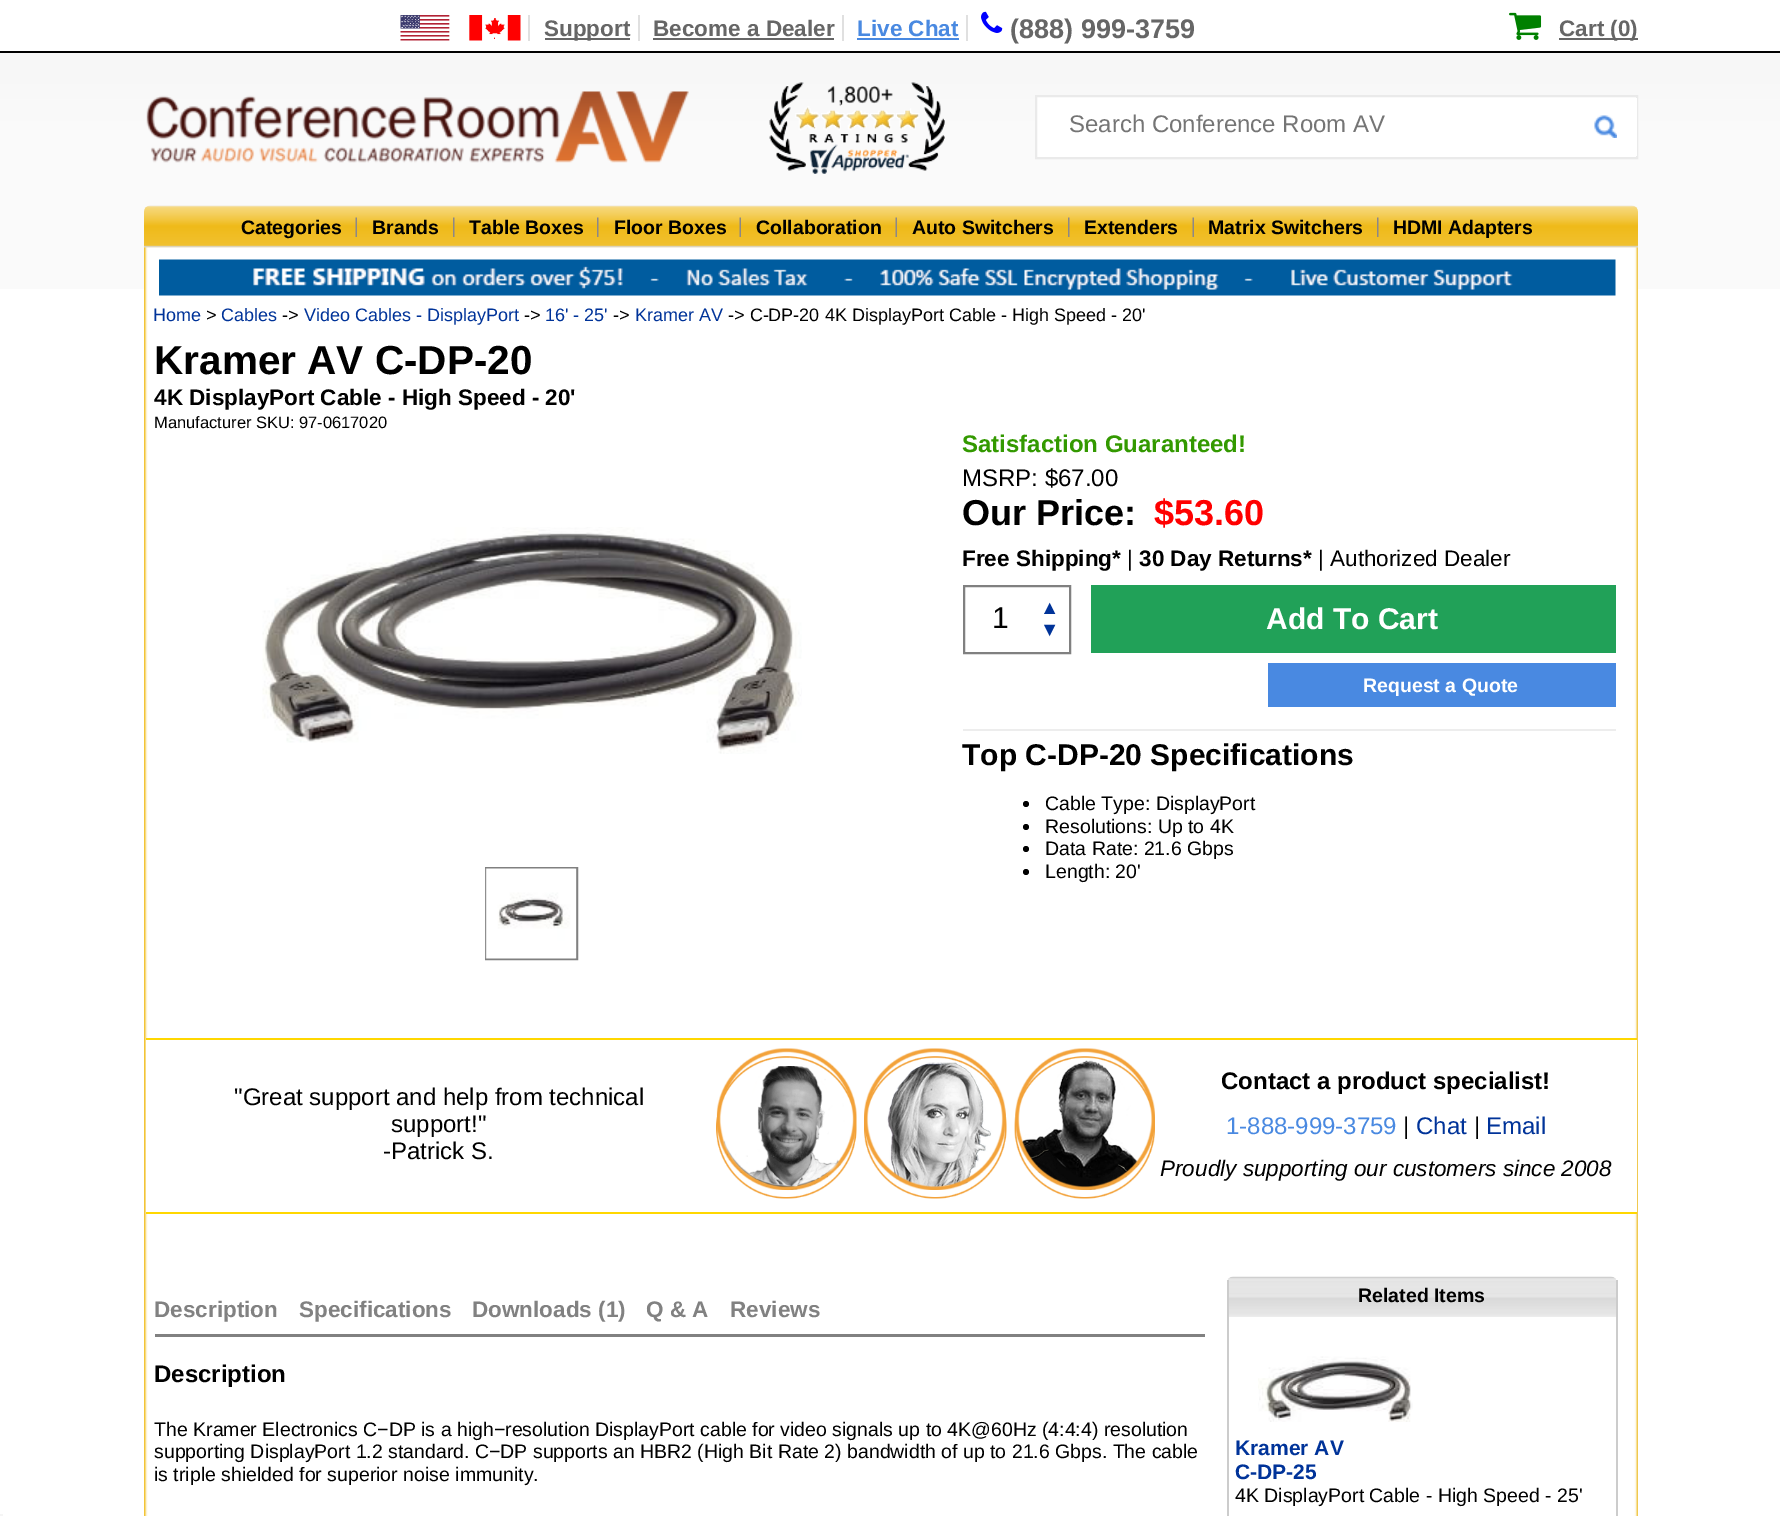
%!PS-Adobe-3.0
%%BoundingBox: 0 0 1780 1516
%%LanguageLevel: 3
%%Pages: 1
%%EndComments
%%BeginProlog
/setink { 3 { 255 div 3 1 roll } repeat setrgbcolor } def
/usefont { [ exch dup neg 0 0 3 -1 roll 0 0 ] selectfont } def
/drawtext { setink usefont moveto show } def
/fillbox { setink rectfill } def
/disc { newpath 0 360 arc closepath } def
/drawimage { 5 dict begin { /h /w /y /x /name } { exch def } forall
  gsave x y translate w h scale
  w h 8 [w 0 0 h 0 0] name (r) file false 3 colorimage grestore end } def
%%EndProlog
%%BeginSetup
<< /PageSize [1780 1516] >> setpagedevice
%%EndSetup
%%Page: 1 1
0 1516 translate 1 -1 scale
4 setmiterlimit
0 0 1780 1516 255 255 255 fillbox
(assets/img1.rgb) 0 53 1780 236 drawimage
0 51 1780 2 0 0 0 fillbox
528 15 2 26 224 224 224 fillbox
(assets/img2.rgb) 400 15 121 26 drawimage
545 38 85 2 102 102 102 fillbox
(Support) 544 36 /LiberationSans-Bold 22.5 102 102 102 drawtext
638 15 2 26 224 224 224 fillbox
(Become a Dealer) 653 36 /LiberationSans-Bold 22.5 102 102 102 drawtext
842 15 2 26 224 224 224 fillbox
653 38 181 2 102 102 102 fillbox
(Live Chat) 857 36 /LiberationSans-Bold 22.5 73 137 225 drawtext
966 15 2 26 224 224 224 fillbox
857 38 102 2 73 137 225 fillbox
(assets/img3.rgb) 981 11 22 22 drawimage
(\(888\) 999-3759) 1010 38 /LiberationSans-Bold 27 102 102 102 drawtext
(assets/img4.rgb) 1509 12 33 28 drawimage
1559 38 79 2 102 102 102 fillbox
(Cart \(0\)) 1559 36 /LiberationSans-Bold 22.5 102 102 102 drawtext
(assets/img5.rgb) 146 91 543 72 drawimage
(assets/img6.rgb) 769 82 176 92 drawimage
255 255 255 setink
1036 96 moveto 1637 96 lineto 1637 158 lineto 1036 158 lineto closepath gsave fill grestore
234 234 234 setink
2 setlinewidth
stroke
(Search Conference Room AV) 1069 132 /LiberationSans-Regular 24 117 117 117 drawtext
1636 98 1 58 255 255 255 fillbox
(assets/img7.rgb) 1594 115 23 23 drawimage
(assets/img8.rgb) 144 205 1494 43 drawimage
(assets/img9.rgb) 355 217 2 20 drawimage
(Categories) 241 234 /LiberationSans-Bold 19.5 0 0 0 drawtext
(assets/img10.rgb) 453 217 2 20 drawimage
(Brands) 372 234 /LiberationSans-Bold 19.5 0 0 0 drawtext
(assets/img10.rgb) 597 217 2 20 drawimage
(Table Boxes) 469 234 /LiberationSans-Bold 19.5 0 0 0 drawtext
(assets/img9.rgb) 739 217 2 20 drawimage
(Floor Boxes) 614 234 /LiberationSans-Bold 19.5 0 0 0 drawtext
(assets/img9.rgb) 895 217 2 20 drawimage
(Collaboration) 756 234 /LiberationSans-Bold 19.5 0 0 0 drawtext
(assets/img11.rgb) 1068 217 2 20 drawimage
(Auto Switchers) 912 234 /LiberationSans-Bold 19.5 0 0 0 drawtext
(assets/img12.rgb) 1192 217 2 20 drawimage
(Extenders) 1084 234 /LiberationSans-Bold 19.5 0 0 0 drawtext
(assets/img10.rgb) 1377 217 2 20 drawimage
(Matrix Switchers) 1208 234 /LiberationSans-Bold 19.5 0 0 0 drawtext
(HDMI Adapters) 1393 234 /LiberationSans-Bold 19.5 0 0 0 drawtext
(assets/img13.rgb) 144 247 1494 1269 drawimage
(assets/img14.rgb) 159 259 1457 37 drawimage
(Home) 153 321 /LiberationSans-Regular 18 0 51 153 drawtext
(>) 206 321 /LiberationSans-Regular 18 0 0 0 drawtext
(Cables) 221 321 /LiberationSans-Regular 18 0 51 153 drawtext
(->) 282 321 /LiberationSans-Regular 18 0 0 0 drawtext
(Video Cables - DisplayPort) 304 321 /LiberationSans-Regular 18 0 51 153 drawtext
(->) 524 321 /LiberationSans-Regular 18 0 0 0 drawtext
(16' - 25') 545 321 /LiberationSans-Regular 18 0 51 153 drawtext
(->) 613 321 /LiberationSans-Regular 18 0 0 0 drawtext
(Kramer AV) 635 321 /LiberationSans-Regular 18 0 51 153 drawtext
(-> C-DP-20 4K DisplayPort Cable - High Speed - 20') 728 321 /LiberationSans-Regular 18 0 0 0 drawtext
(Kramer AV C-DP-20) 154 374 /LiberationSans-Bold 40.5 0 0 0 drawtext
(4K DisplayPort Cable - High Speed - 20') 154 405 /LiberationSans-Bold 22.5 0 0 0 drawtext
(Manufacturer SKU: 97-0617020) 154 428 /LiberationSans-Regular 16.5 0 0 0 drawtext
(assets/img15.rgb) 262 527 540 227 drawimage
128 128 128 setink
486 868 91 91 rectstroke
(assets/img16.rgb) 485 868 92 91 drawimage
(Satisfaction Guaranteed!) 962 452 /LiberationSans-Bold 24 51 153 0 drawtext
(MSRP: $67.00) 962 486 /LiberationSans-Regular 24 0 0 0 drawtext
(Our Price:) 962 525 /LiberationSans-Bold 36 0 0 0 drawtext
($53.60) 1154 525 /LiberationSans-Bold 36 255 0 0 drawtext
(Free Shipping*) 962 566 /LiberationSans-Bold 22.5 0 0 0 drawtext
(|) 1127 566 /LiberationSans-Regular 22.5 0 0 0 drawtext
(30 Day Returns*) 1139 566 /LiberationSans-Bold 22.5 0 0 0 drawtext
(| Authorized Dealer) 1318 566 /LiberationSans-Regular 22.5 0 0 0 drawtext
128 128 128 setink
964 586 106 67 rectstroke
(1) 992 628 /LiberationSans-Regular 30 0 0 0 drawtext
(▲) 1040 614 /LiberationSans-Regular 19.5 0 51 153 drawtext
(▼) 1040 636 /LiberationSans-Regular 19.5 0 51 153 drawtext
1091 585 525 68 33 161 88 fillbox
(Add To Cart) 1266 629 /LiberationSans-Bold 30 255 255 255 drawtext
1268 663 348 44 73 137 225 fillbox
(Request a Quote) 1363 692 /LiberationSans-Bold 19.5 255 255 255 drawtext
963 729 653 2 237 237 237 fillbox
(Top C-DP-20 Specifications) 962 765 /LiberationSans-Bold 30 0 0 0 drawtext
1026 804 3 disc fill
(Cable Type: DisplayPort) 1045 810 /LiberationSans-Regular 19.5 0 0 0 drawtext
1026 827 3 disc fill
(Resolutions: Up to 4K) 1045 833 /LiberationSans-Regular 19.5 0 0 0 drawtext
1026 849 3 disc fill
(Data Rate: 21.6 Gbps) 1045 855 /LiberationSans-Regular 19.5 0 0 0 drawtext
1026 872 3 disc fill
(Length: 20') 1045 878 /LiberationSans-Regular 19.5 0 0 0 drawtext
146 1040 1491 172 255 255 255 fillbox
146 1038 1491 2 255 215 0 fillbox
146 1212 1491 2 255 215 0 fillbox
("Great support and help from technical) 234 1105 /LiberationSans-Regular 24 0 0 0 drawtext
(support!") 391 1132 /LiberationSans-Regular 24 0 0 0 drawtext
(-Patrick S.) 383 1159 /LiberationSans-Regular 24 0 0 0 drawtext
(assets/img17.rgb) 716 1048 141 151 drawimage
(assets/img18.rgb) 864 1048 143 151 drawimage
(assets/img19.rgb) 1014 1048 141 151 drawimage
(Contact a product specialist!) 1221 1089 /LiberationSans-Bold 24 0 0 0 drawtext
(1-888-999-3759) 1226 1134 /LiberationSans-Regular 24 73 137 225 drawtext
(|) 1403 1134 /LiberationSans-Regular 24 0 0 0 drawtext
(Chat) 1416 1134 /LiberationSans-Regular 24 0 51 153 drawtext
(|) 1474 1134 /LiberationSans-Regular 24 0 0 0 drawtext
(Email) 1486 1134 /LiberationSans-Regular 24 0 51 153 drawtext
(Proudly supporting our customers since 2008) 1160 1176 /LiberationSans-Italic 22.5 0 0 0 drawtext
155 1334 1050 3 129 129 129 fillbox
(Description) 154 1317 /LiberationSans-Bold 22.5 129 129 129 drawtext
(Specifications) 299 1317 /LiberationSans-Bold 22.5 129 129 129 drawtext
(Downloads \(1\)) 472 1317 /LiberationSans-Bold 22.5 129 129 129 drawtext
(Q & A) 646 1317 /LiberationSans-Bold 22.5 129 129 129 drawtext
(Reviews) 730 1317 /LiberationSans-Bold 22.5 129 129 129 drawtext
(Description) 154 1382 /LiberationSans-Bold 24 0 0 0 drawtext
(The Kramer Electronics C−DP is a high−resolution DisplayPort cable for video signals up to 4K@60Hz \(4:4:4\) resolution) 154 1436 /LiberationSans-Regular 19.5 0 0 0 drawtext
(supporting DisplayPort 1.2 standard. C−DP supports an HBR2 \(High Bit Rate 2\) bandwidth of up to 21.6 Gbps. The cable) 154 1458 /LiberationSans-Regular 19.5 0 0 0 drawtext
(is triple shielded for superior noise immunity.) 154 1481 /LiberationSans-Regular 19.5 0 0 0 drawtext
(assets/img20.rgb) 1227 1276 390 41 drawimage
1616 1280 2 236 204 204 204 fillbox
1227 1280 2 236 204 204 204 fillbox
(Related Items) 1358 1302 /LiberationSans-Bold 19.5 0 0 0 drawtext
(assets/img21.rgb) 1258 1356 155 66 drawimage
(Kramer AV) 1235 1455 /LiberationSans-Bold 21 0 51 153 drawtext
(C-DP-25) 1235 1479 /LiberationSans-Bold 21 0 51 153 drawtext
(4K DisplayPort Cable - High Speed - 25') 1235 1502 /LiberationSans-Regular 19.5 0 0 0 drawtext
0 1514 3 2 245 245 245 fillbox
showpage
%%EOF
